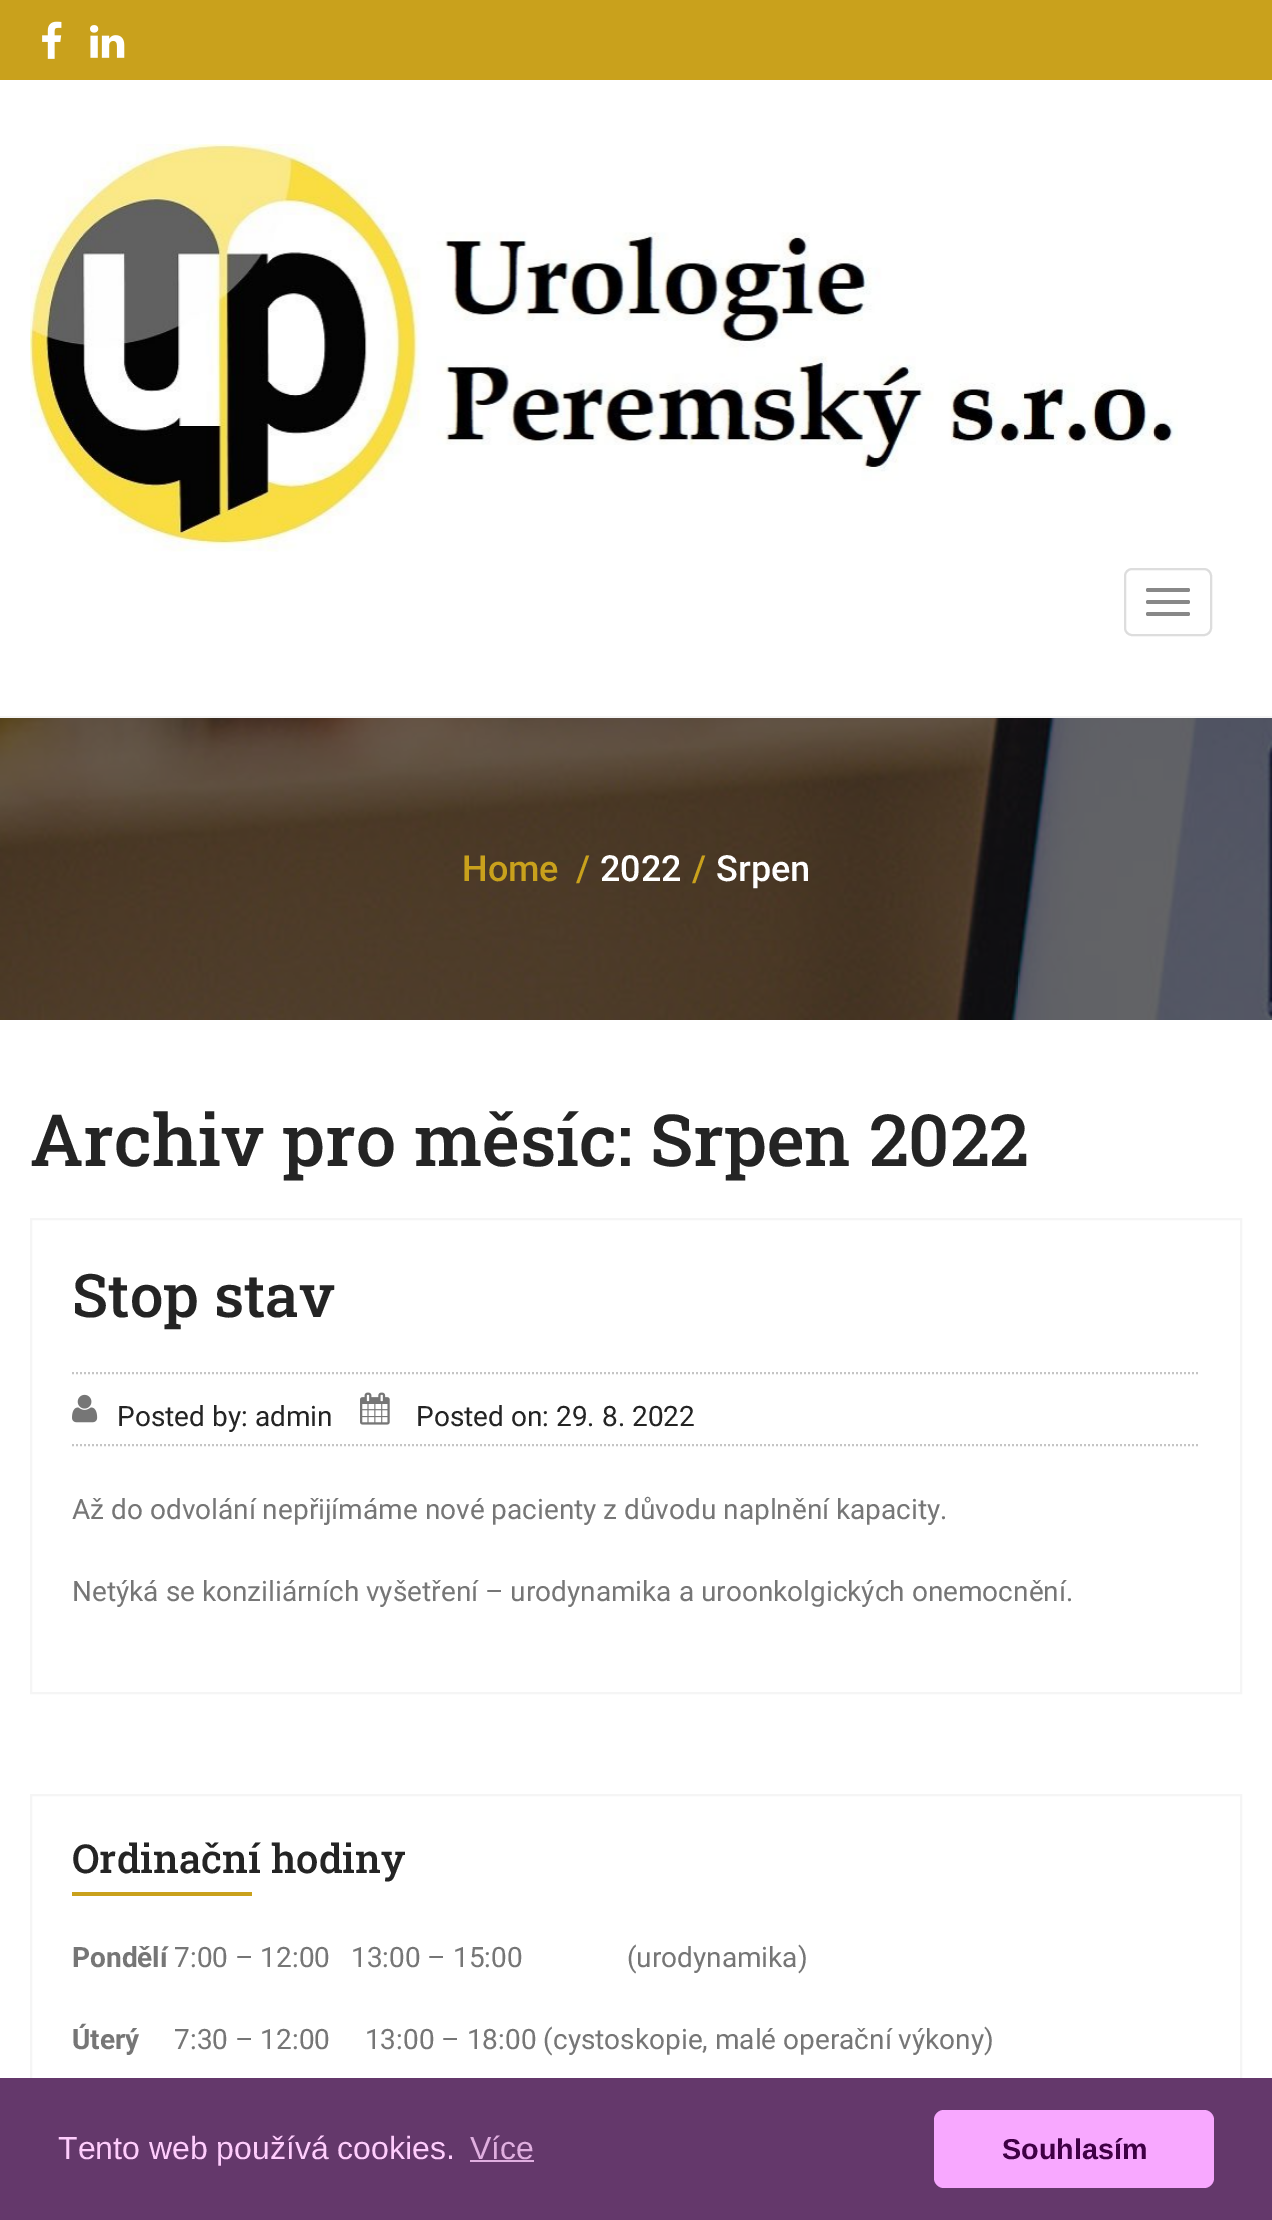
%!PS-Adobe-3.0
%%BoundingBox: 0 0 1272 2220
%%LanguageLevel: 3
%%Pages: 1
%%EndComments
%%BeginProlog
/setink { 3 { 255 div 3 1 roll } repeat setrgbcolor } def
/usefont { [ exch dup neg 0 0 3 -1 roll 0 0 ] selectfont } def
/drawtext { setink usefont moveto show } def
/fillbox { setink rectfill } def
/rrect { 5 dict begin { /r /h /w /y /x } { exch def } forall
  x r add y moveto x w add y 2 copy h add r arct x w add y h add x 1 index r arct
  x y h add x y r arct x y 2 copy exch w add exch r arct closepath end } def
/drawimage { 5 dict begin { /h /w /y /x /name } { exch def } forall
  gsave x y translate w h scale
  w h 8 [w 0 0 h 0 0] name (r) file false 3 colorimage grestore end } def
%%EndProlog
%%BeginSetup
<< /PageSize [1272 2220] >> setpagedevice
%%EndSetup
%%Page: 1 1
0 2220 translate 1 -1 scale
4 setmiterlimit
0 0 1272 2220 255 255 255 fillbox
0 0 1272 80 201 161 28 fillbox
(assets/img1.rgb) 42 21 20 38 drawimage
(assets/img2.rgb) 90 25 35 33 drawimage
0 716 1272 2 245 245 245 fillbox
(assets/img3.rgb) 30 144 1148 408 drawimage
221 221 221 setink
2 setlinewidth
1125 569 86 66 7 rrect stroke
136 136 136 setink
1146 588 44 4 2 rrect fill
1146 600 44 4 2 rrect fill
1146 612 44 4 2 rrect fill
(assets/img4.rgb) 0 718 1272 302 drawimage
(Home) 462 881 /Roboto-Medium 36 201 161 28 drawtext
(/) 576 881 /Roboto-Medium 36 201 161 28 drawtext
(2022) 600 881 /Roboto-Medium 36 255 255 255 drawtext
(/) 692 881 /Roboto-Medium 36 201 161 28 drawtext
(Srpen) 716 881 /Roboto-Medium 36 255 255 255 drawtext
(Archiv pro měsíc: Srpen 2022) 30 1166 /RobotoSlab-Medium 72 36 36 36 drawtext
245 245 245 setink
31 1219 1210 474 rectstroke
(Stop stav) 72 1317 /RobotoSlab-Medium 60 36 36 36 drawtext
197 197 197 setink
[2 2] 0 setdash
72 1373 moveto 1200 1373 lineto stroke
72 1445 moveto 1200 1445 lineto stroke
(assets/img5.rgb) 72 1394 26 29 drawimage
(Posted by: admin) 117 1426 /Roboto-Regular 28 36 36 36 drawtext
(assets/img6.rgb) 360 1392 30 33 drawimage
(Posted on: 29. 8. 2022) 416 1426 /Roboto-Regular 28 36 36 36 drawtext
(Až do odvolání nepřijímáme nové pacienty z důvodu naplnění kapacity.) 72 1519 /Roboto-Regular 28 118 118 118 drawtext
(Netýká se konziliárních vyšetření – urodynamika a uroonkolgických onemocnění.) 72 1601 /Roboto-Regular 28 118 118 118 drawtext
245 245 245 setink
[] 0 setdash
31 1795 1210 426 rectstroke
(Ordinační hodiny) 72 1873 /RobotoSlab-Medium 40 36 36 36 drawtext
72 1892 180 4 201 161 28 fillbox
(Pondělí) 72 1967 /Roboto-Bold 28 118 118 118 drawtext
(7:00 – 12:00   13:00 – 15:00               \(urodynamika\)) 174 1967 /Roboto-Regular 28 118 118 118 drawtext
(Úterý) 72 2049 /Roboto-Bold 28 118 118 118 drawtext
(7:30 – 12:00     13:00 – 18:00 \(cystoskopie, malé operační výkony\)) 174 2049 /Roboto-Regular 28 118 118 118 drawtext
0 2078 1272 142 100 56 107 fillbox
(Tento web používá cookies.) 58 2159 /LiberationSans-Regular 32 255 205 253 drawtext
(Více) 470 2159 /LiberationSans-Regular 32 224 175 224 drawtext
470 2160 64 2 224 175 224 fillbox
248 168 255 setink
934 2110 280 78 10 rrect fill
(Souhlasím) 1002 2159 /LiberationSans-Bold 28.75 63 0 69 drawtext
showpage
%%EOF
